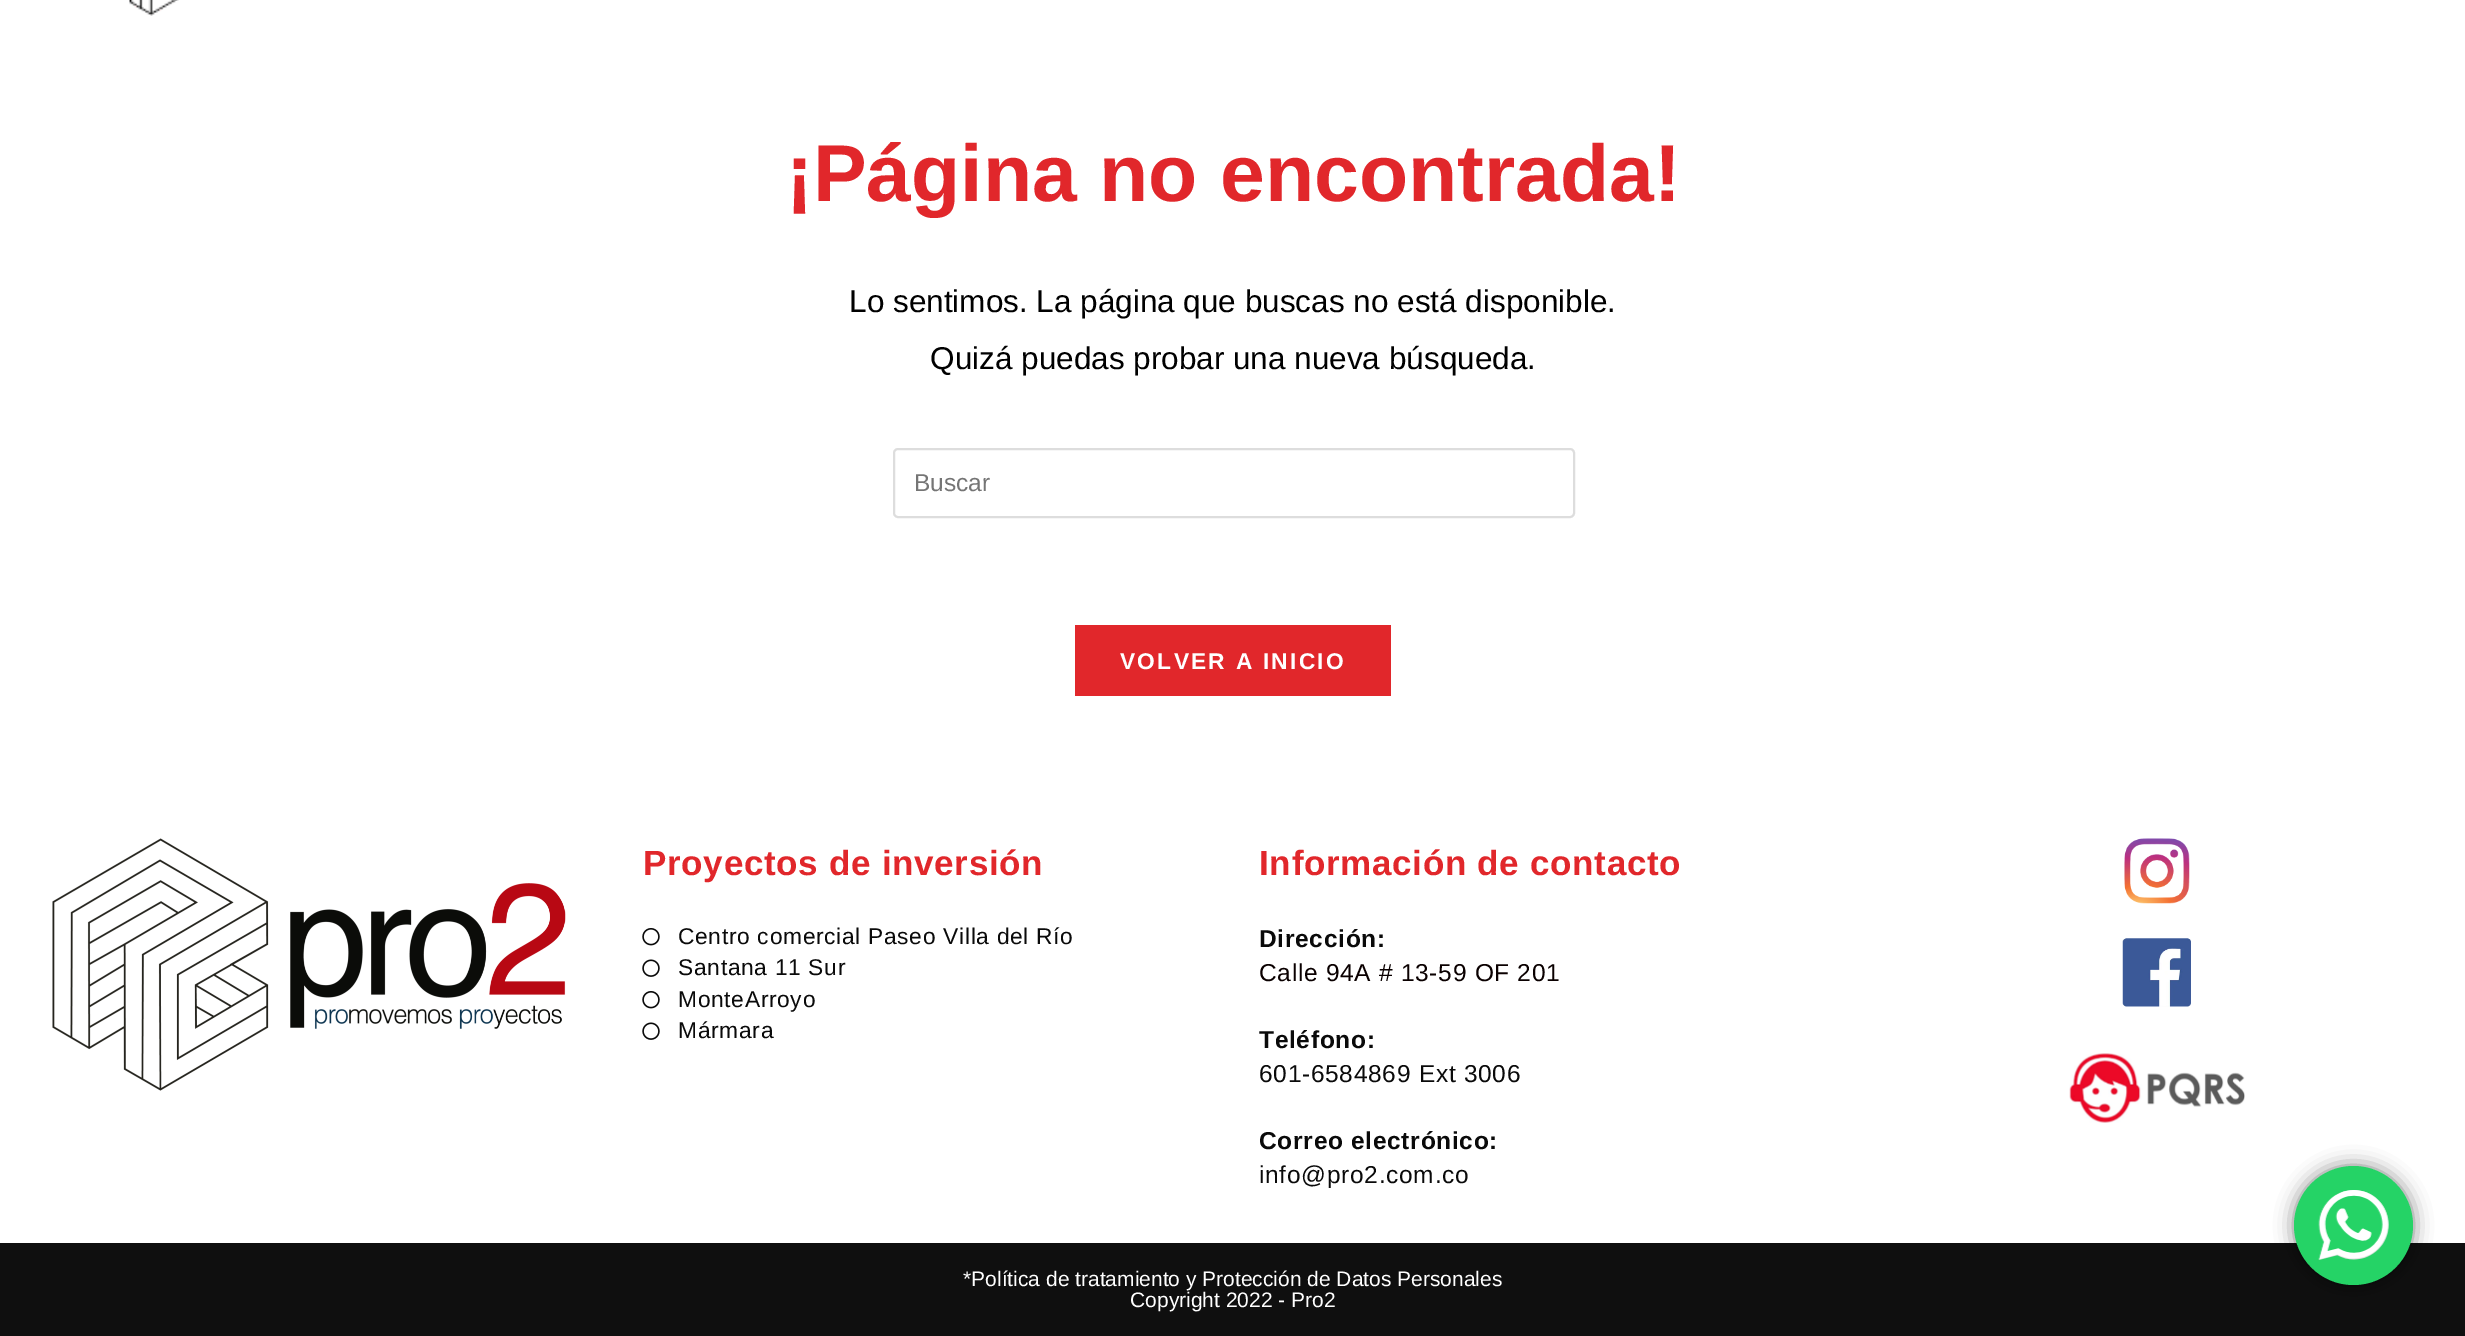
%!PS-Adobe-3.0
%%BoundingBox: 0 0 2465 1336
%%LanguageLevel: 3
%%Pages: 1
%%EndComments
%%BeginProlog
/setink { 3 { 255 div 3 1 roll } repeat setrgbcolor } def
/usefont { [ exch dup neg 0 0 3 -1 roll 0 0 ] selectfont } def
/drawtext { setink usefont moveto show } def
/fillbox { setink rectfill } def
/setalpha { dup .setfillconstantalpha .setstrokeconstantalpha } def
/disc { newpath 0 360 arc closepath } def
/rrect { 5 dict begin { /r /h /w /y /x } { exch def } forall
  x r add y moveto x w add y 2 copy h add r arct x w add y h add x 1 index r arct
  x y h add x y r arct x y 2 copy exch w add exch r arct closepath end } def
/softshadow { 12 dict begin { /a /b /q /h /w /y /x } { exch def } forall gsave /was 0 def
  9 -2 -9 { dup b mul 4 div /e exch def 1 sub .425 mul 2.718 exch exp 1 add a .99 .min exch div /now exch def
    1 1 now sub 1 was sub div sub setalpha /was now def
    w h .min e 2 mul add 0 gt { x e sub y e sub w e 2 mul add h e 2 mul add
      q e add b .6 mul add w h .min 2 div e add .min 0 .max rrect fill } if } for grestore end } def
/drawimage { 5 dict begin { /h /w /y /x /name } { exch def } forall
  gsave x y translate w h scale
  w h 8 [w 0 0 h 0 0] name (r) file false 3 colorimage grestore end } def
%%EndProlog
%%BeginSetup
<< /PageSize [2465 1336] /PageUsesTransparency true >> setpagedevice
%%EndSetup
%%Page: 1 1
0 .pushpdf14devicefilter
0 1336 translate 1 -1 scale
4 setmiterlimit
0 0 2465 1336 255 255 255 fillbox
(assets/img1.rgb) 129 0 50 16 drawimage
(¡Página no encontrada!) 786 201 /LiberationSans-Bold 80.5 225 39 43 drawtext
(Lo sentimos. La página que buscas no está disponible.) 849 312 /LiberationSans-Regular 31.5 0 0 0 drawtext
(Quizá puedas probar una nueva búsqueda.) 930 369 /LiberationSans-Regular 31.5 0 0 0 drawtext
221 221 221 setink
2 setlinewidth
894 449 680 68 4 rrect stroke
(Buscar) 914 491 /LiberationSans-Regular 24.5 117 117 117 drawtext
1075 625 316 71 225 39 43 fillbox
/LiberationSans-Bold 22.75 usefont
255 255 255 setink
1120 669 moveto 2.25 0 (VOLVER A INICIO) ashow
(assets/img2.rgb) 52 838 514 253 drawimage
/LiberationSans-Bold 35 usefont
225 39 43 setink
643 875 moveto 0.7 0 (Proyectos de inversión) ashow
(assets/img3.rgb) 642 928 18 18 drawimage
/LiberationSans-Regular 22.75 usefont
10 10 10 setink
678 944 moveto 0.7 0 (Centro comercial Paseo Villa del Río) ashow
(assets/img4.rgb) 642 959 18 18 drawimage
678 975 moveto 0.7 0 (Santana 11 Sur) ashow
(assets/img3.rgb) 642 991 18 18 drawimage
678 1007 moveto 0.7 0 (MonteArroyo) ashow
(assets/img4.rgb) 642 1022 18 18 drawimage
678 1038 moveto 0.7 0 (Mármara) ashow
/LiberationSans-Bold 35 usefont
225 39 43 setink
1259 875 moveto 0.7 0 (Información de contacto) ashow
/LiberationSans-Bold 24.5 usefont
10 10 10 setink
1259 947 moveto 0.7 0 (Dirección:) ashow
/LiberationSans-Regular 24.5 usefont
10 0 0 setink
1259 981 moveto 0.7 0 (Calle 94A # 13-59 OF 201) ashow
/LiberationSans-Bold 24.5 usefont
10 10 10 setink
1259 1048 moveto 0.7 0 (Teléfono:) ashow
/LiberationSans-Regular 24.5 usefont
1259 1082 moveto 0.7 0 (601-6584869 Ext 3006) ashow
/LiberationSans-Bold 24.5 usefont
1259 1149 moveto 0.7 0 (Correo electrónico:) ashow
/LiberationSans-Regular 24.5 usefont
1259 1183 moveto 0.7 0 (info@pro2.com.co) ashow
(assets/img5.rgb) 2124 838 66 66 drawimage
(assets/img6.rgb) 2122 938 69 69 drawimage
(assets/img7.rgb) 2069 1053 176 70 drawimage
0 1243 2465 93 15 15 15 fillbox
(*Política de tratamiento y Protección de Datos Personales) 963 1286 /LiberationSans-Regular 21 255 255 255 drawtext
(Copyright 2022 - Pro2) 1130 1307 /LiberationSans-Regular 21 255 255 255 drawtext
0 0 0 setink
2294 1166 119 119 59.5 9.5 0.5 softshadow
37 211 102 setink
2353.5 1225.5 59.5 disc fill
(assets/img8.rgb) 2318 1190 71 70 drawimage
.poppdf14devicefilter showpage
%%EOF
